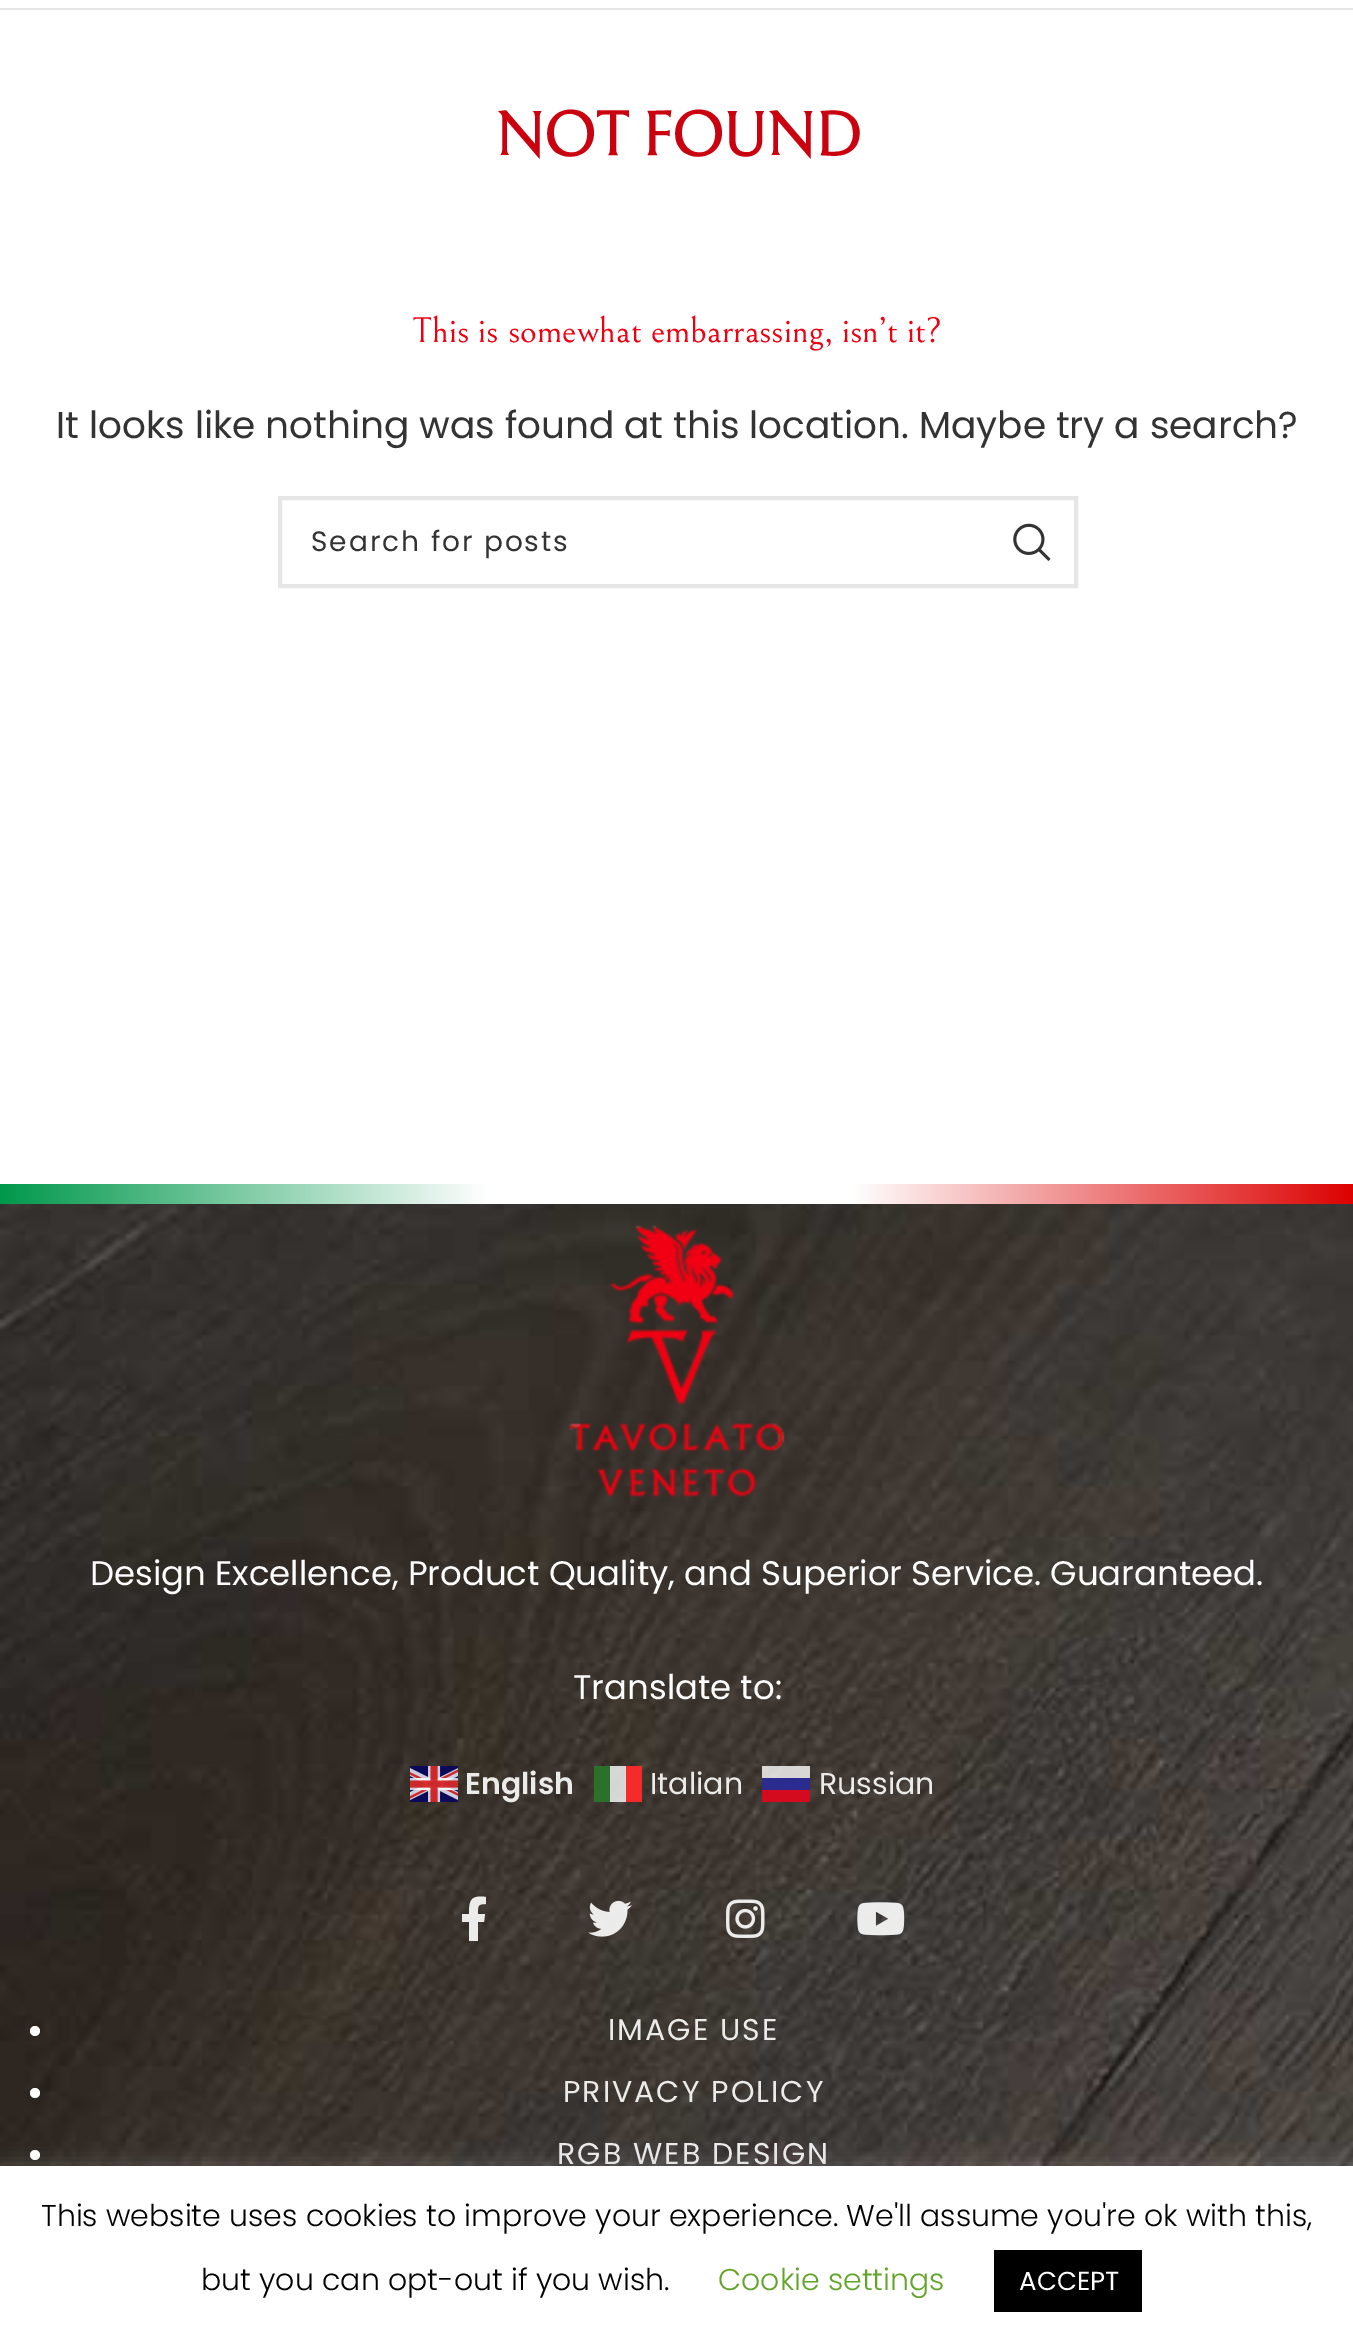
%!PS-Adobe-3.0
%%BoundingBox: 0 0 1353 2345
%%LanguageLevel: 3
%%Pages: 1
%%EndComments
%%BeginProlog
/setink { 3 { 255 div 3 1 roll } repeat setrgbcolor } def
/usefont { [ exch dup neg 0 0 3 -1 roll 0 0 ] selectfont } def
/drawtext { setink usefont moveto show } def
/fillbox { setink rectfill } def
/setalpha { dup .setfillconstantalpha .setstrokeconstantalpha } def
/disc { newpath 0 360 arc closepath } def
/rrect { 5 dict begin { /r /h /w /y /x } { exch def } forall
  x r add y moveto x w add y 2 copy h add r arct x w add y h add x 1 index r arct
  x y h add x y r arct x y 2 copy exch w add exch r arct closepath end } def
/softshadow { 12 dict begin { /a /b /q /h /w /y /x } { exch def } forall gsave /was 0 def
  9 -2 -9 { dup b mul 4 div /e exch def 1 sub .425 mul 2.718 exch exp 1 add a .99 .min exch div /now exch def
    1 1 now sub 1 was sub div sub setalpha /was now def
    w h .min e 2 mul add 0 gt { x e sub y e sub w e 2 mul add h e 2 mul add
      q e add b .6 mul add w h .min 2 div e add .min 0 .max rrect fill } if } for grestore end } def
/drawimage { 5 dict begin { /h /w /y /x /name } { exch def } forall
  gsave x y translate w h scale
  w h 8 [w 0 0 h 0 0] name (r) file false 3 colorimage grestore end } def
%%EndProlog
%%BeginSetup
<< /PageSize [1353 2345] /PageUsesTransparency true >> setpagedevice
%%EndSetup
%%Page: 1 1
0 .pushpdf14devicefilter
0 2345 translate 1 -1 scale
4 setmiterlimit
0 0 1353 2345 255 255 255 fillbox
0 8 1353 2 230 230 230 fillbox
/Bellefair-Bold 64 usefont
202 2 16 setink
494 156 moveto -2 0 (NOT FOUND) ashow
(This is somewhat embarrassing, isn’t it?) 412 342 /Bellefair-Regular 36 239 0 17 drawtext
(It looks like nothing was found at this location. Maybe try a search?) 56 438 /Poppins-Regular 37.4 51 51 51 drawtext
230 230 230 setink
4 setlinewidth
280 498 796 88 rectstroke
/Poppins-Regular 28 usefont
51 51 51 setink
311 551 moveto 2 0 (Search for posts) ashow
(assets/img1.rgb) 1013 523 38 38 drawimage
(assets/img2.rgb) 0 1204 1353 962 drawimage
gsave 0 1184 moveto 1353 1184 lineto 1353 1204 lineto 0 1204 lineto closepath clip newpath
<< /ShadingType 2 /ColorSpace /DeviceRGB /Coords [0 1194 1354 1194] /Extend [true true] /Function << /FunctionType 3 /Domain [0 1] /Functions [<< /FunctionType 2 /Domain [0 1] /C0 [0 0.596 0.294] /C1 [1 1 1] /N 1 >> << /FunctionType 2 /Domain [0 1] /C0 [1 1 1] /C1 [1 1 1] /N 1 >> << /FunctionType 2 /Domain [0 1] /C0 [1 1 1] /C1 [0.863 0.004 0] /N 1 >>] /Bounds [0.36 0.63] /Encode [0 1 0 1 0 1] >> >> shfill grestore
(assets/img3.rgb) 569 1225 216 272 drawimage
(Design Excellence, Product Quality, and Superior Service. Guaranteed.) 90 1585 /Poppins-Regular 34 255 255 255 drawtext
(Translate to:) 573 1699 /Poppins-Regular 34 255 255 255 drawtext
(assets/img4.rgb) 410 1766 48 36 drawimage
(English) 465 1794 /Poppins-SemiBold 30 235 235 234 drawtext
(Italian) 650 1794 /Poppins-Regular 30 235 235 234 drawtext
0.8 setalpha
594 1766 48 36 255 255 255 fillbox
594 1766 16 36 0 87 0 fillbox
626 1766 16 36 252 0 0 fillbox
1 setalpha
(Russian) 819 1794 /Poppins-Regular 30 235 235 234 drawtext
0.8 setalpha
762 1766 48 24 255 255 255 fillbox
762 1778 48 12 1 1 126 fillbox
1 setalpha
762 1790 48 12 212 10 30 fillbox
0.9 setalpha
255 255 255 setink
484 1922 moveto 485 1914 lineto 478 1914 lineto 478 1906 477 1904 486 1904 curveto 486 1897 lineto 471 1895 469 1900 469 1914 curveto 462 1914 lineto 462 1922 lineto 469 1922 lineto 469 1941 lineto 478 1941 lineto 478 1922 lineto closepath fill
1 setalpha
(assets/img5.rgb) 588 1900 44 37 drawimage
(assets/img6.rgb) 726 1899 39 39 drawimage
(assets/img7.rgb) 857 1902 48 34 drawimage
35 2031 5 disc fill
235 235 234 setink
608 2040 moveto 2 0 (IMAGE USE) ashow
255 255 255 setink
35 2093 5 disc fill
235 235 234 setink
563 2102 moveto 2 0 (PRIVACY POLICY) ashow
255 255 255 setink
35 2155 5 disc fill
235 235 234 setink
557 2164 moveto 2 0 (RGB WEB DESIGN) ashow
172 171 171 setink
0 2164 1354 180 0 10 0.3 softshadow
0 2166 1353 179 255 255 255 fillbox
(This website uses cookies to improve your experience. We'll assume you're ok with this,) 41 2226 /Poppins-Light 30 0 0 0 drawtext
(but you can opt-out if you wish.) 201 2290 /Poppins-Light 30 0 0 0 drawtext
(Cookie settings) 718 2290 /Poppins-Light 30 98 163 41 drawtext
994 2250 148 62 0 0 0 fillbox
(ACCEPT) 1019 2290 /Poppins-Regular 26 255 255 255 drawtext
.poppdf14devicefilter showpage
%%EOF
